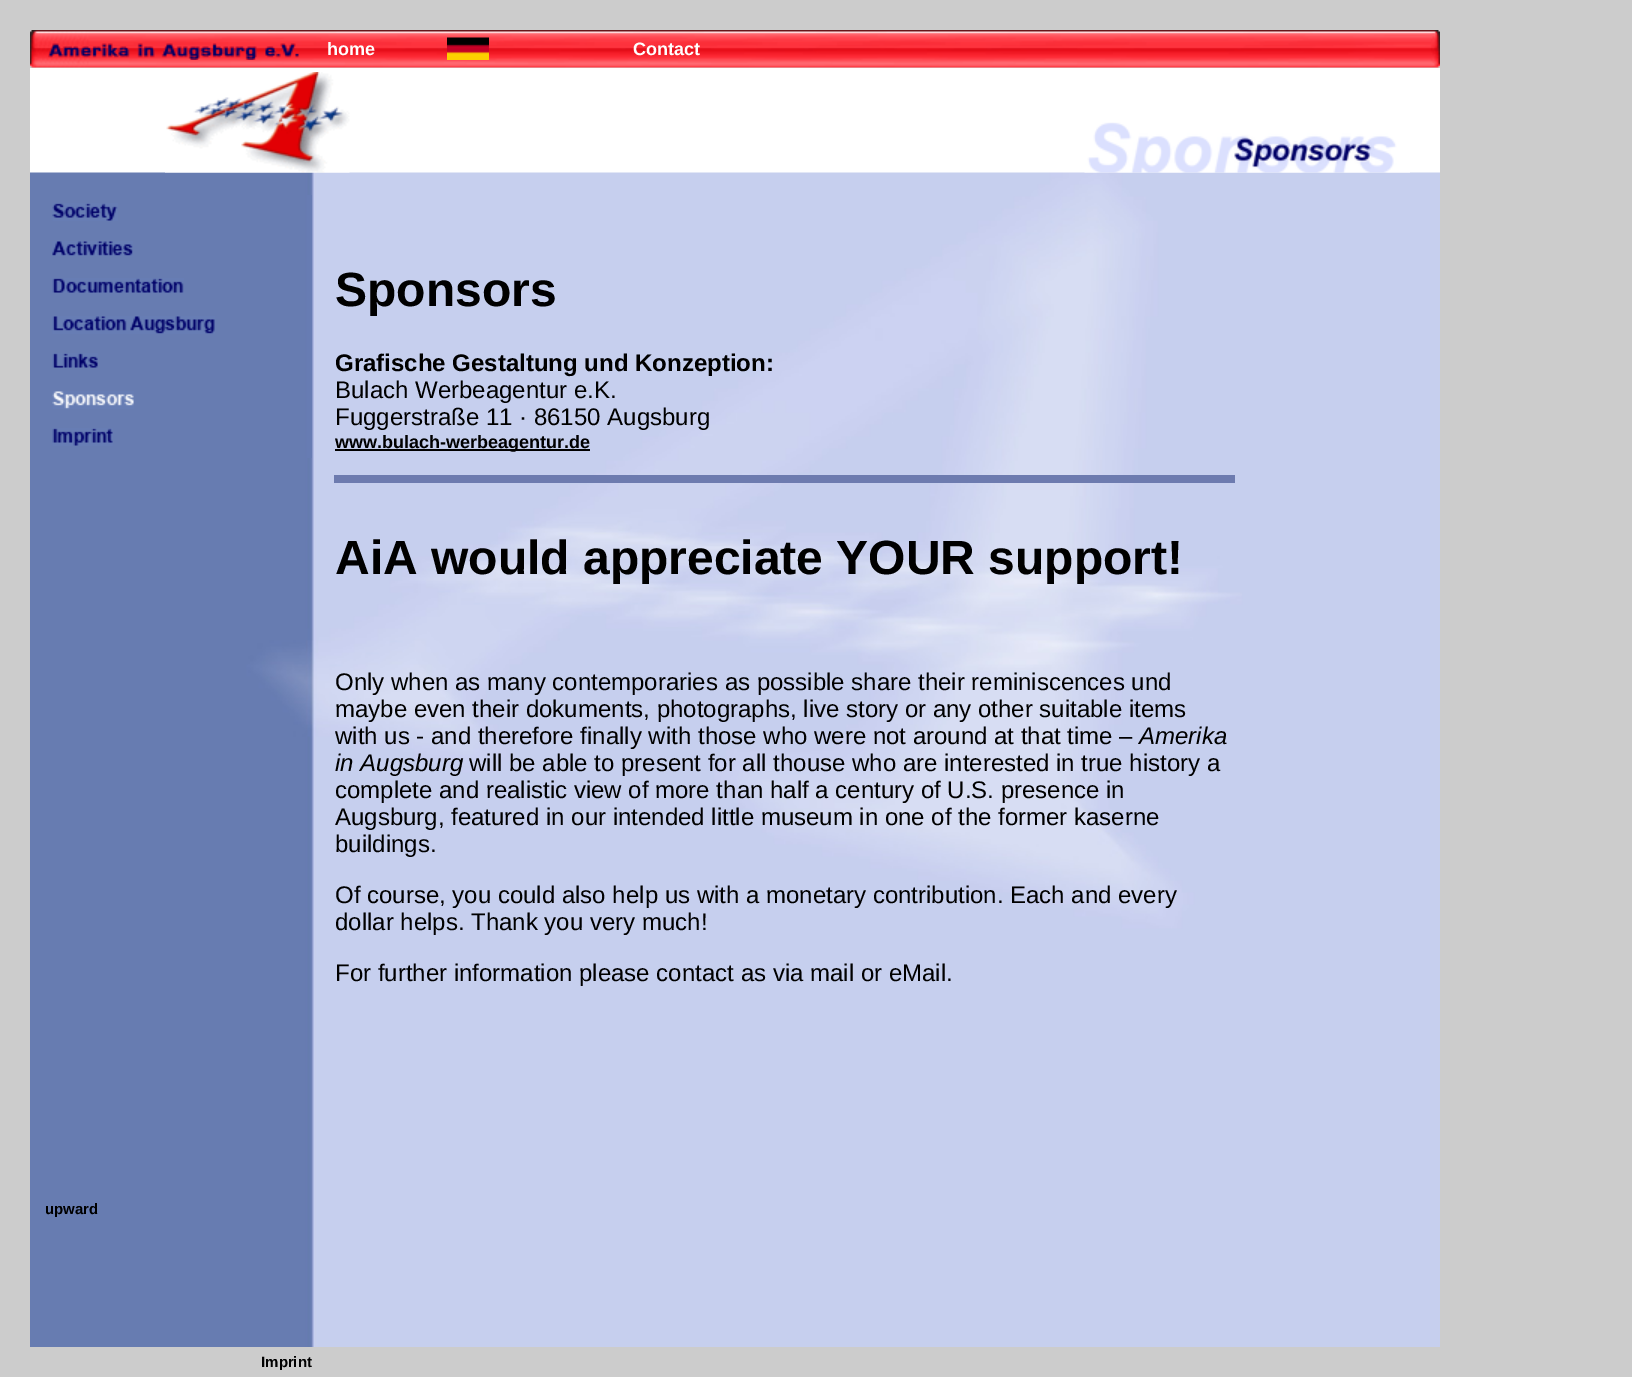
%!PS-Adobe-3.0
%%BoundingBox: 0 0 1632 1377
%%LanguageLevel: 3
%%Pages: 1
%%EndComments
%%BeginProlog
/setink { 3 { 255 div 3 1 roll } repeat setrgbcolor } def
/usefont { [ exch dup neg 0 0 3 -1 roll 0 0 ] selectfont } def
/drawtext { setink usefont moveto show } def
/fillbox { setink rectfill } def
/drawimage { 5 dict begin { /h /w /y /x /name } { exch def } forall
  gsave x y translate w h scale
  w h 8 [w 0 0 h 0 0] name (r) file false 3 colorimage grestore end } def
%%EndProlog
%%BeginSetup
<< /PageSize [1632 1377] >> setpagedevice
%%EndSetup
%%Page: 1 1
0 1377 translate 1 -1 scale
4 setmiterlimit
0 0 1632 1377 204 204 204 fillbox
30 68 1410 105 255 255 255 fillbox
(assets/img6.rgb) 30 172 1410 1175 drawimage
(upward) 45 1214 /LiberationSans-Bold 15 0 0 0 drawtext
(assets/img1.rgb) 30 30 1410 38 drawimage
(assets/img2.rgb) 48 43 251 17 drawimage
(home) 327 55 /LiberationSans-Bold 18 255 255 255 drawtext
(assets/img3.rgb) 447 37 42 23 drawimage
(Contact) 633 55 /LiberationSans-Bold 18 255 255 255 drawtext
(assets/img4.rgb) 165 72 185 101 drawimage
(assets/img5.rgb) 1084 122 326 51 drawimage
307 195 5 263 103 124 179 fillbox
(assets/img7.rgb) 52 203 66 18 drawimage
(assets/img8.rgb) 52 241 81 15 drawimage
(assets/img9.rgb) 52 278 132 15 drawimage
(assets/img10.rgb) 52 316 163 18 drawimage
(assets/img11.rgb) 52 353 46 15 drawimage
(assets/img12.rgb) 52 391 82 18 drawimage
(assets/img13.rgb) 52 428 61 18 drawimage
(Sponsors) 335 306 /LiberationSans-Bold 48 0 0 0 drawtext
(Grafische Gestaltung und Konzeption:) 335 371 /LiberationSans-Bold 24 0 0 0 drawtext
(Bulach Werbeagentur e.K.) 335 398 /LiberationSans-Regular 24 0 0 0 drawtext
(Fuggerstraße 11 · 86150 Augsburg) 335 425 /LiberationSans-Regular 24 0 0 0 drawtext
335 449 255 2 0 0 0 fillbox
(www.bulach-werbeagentur.de) 335 448 /LiberationSans-Bold 18 0 0 0 drawtext
334 475 901 8 109 123 175 fillbox
(AiA would appreciate YOUR support!) 335 574 /LiberationSans-Bold 48 0 0 0 drawtext
(Only when as many contemporaries as possible share their reminiscences und) 335 690 /LiberationSans-Regular 24 0 0 0 drawtext
(maybe even their dokuments, photographs, live story or any other suitable items) 335 717 /LiberationSans-Regular 24 0 0 0 drawtext
(with us - and therefore finally with those who were not around at that time –) 335 744 /LiberationSans-Regular 24 0 0 0 drawtext
(Amerika) 1139 744 /LiberationSans-Italic 24 0 0 0 drawtext
(in Augsburg) 335 771 /LiberationSans-Italic 24 0 0 0 drawtext
(will be able to present for all thouse who are interested in true history a) 469 771 /LiberationSans-Regular 24 0 0 0 drawtext
(complete and realistic view of more than half a century of U.S. presence in) 335 798 /LiberationSans-Regular 24 0 0 0 drawtext
(Augsburg, featured in our intended little museum in one of the former kaserne) 335 825 /LiberationSans-Regular 24 0 0 0 drawtext
(buildings.) 335 852 /LiberationSans-Regular 24 0 0 0 drawtext
(Of course, you could also help us with a monetary contribution. Each and every) 335 903 /LiberationSans-Regular 24 0 0 0 drawtext
(dollar helps. Thank you very much!) 335 930 /LiberationSans-Regular 24 0 0 0 drawtext
(For further information please contact as via mail or eMail.) 335 981 /LiberationSans-Regular 24 0 0 0 drawtext
(Imprint) 261 1367 /LiberationSans-Bold 15 0 0 0 drawtext
showpage
%%EOF
